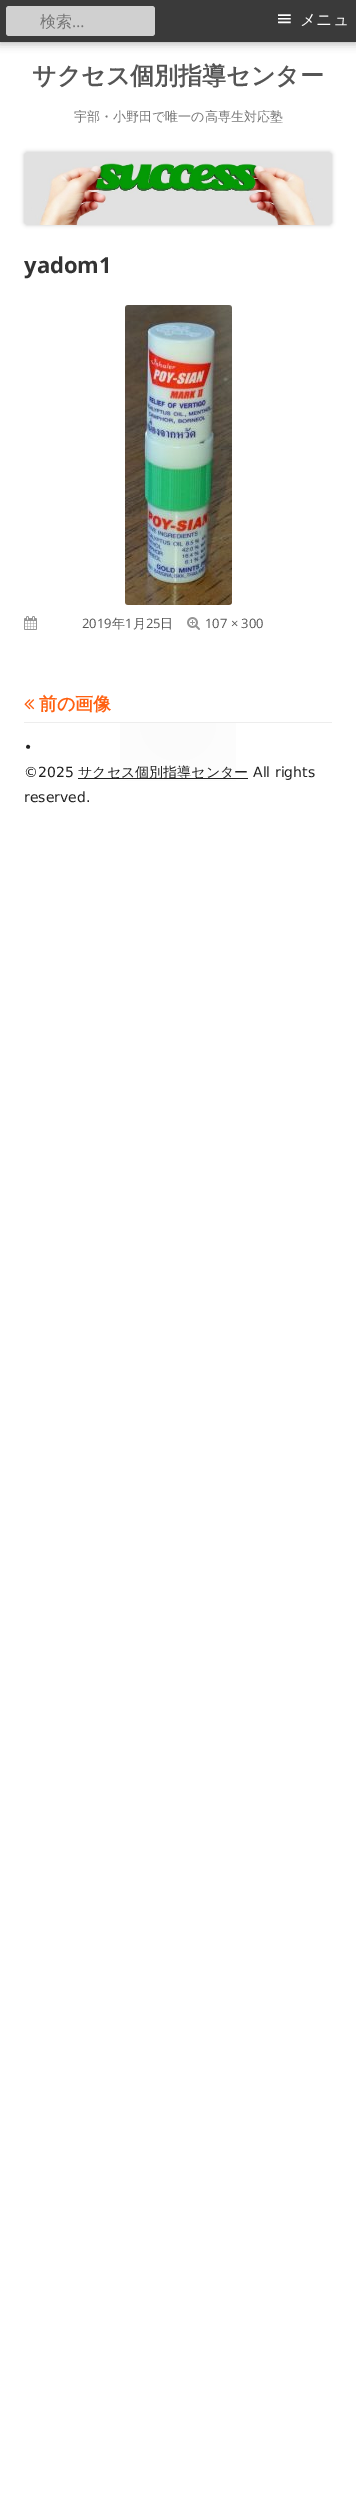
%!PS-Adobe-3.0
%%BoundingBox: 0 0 356 2509
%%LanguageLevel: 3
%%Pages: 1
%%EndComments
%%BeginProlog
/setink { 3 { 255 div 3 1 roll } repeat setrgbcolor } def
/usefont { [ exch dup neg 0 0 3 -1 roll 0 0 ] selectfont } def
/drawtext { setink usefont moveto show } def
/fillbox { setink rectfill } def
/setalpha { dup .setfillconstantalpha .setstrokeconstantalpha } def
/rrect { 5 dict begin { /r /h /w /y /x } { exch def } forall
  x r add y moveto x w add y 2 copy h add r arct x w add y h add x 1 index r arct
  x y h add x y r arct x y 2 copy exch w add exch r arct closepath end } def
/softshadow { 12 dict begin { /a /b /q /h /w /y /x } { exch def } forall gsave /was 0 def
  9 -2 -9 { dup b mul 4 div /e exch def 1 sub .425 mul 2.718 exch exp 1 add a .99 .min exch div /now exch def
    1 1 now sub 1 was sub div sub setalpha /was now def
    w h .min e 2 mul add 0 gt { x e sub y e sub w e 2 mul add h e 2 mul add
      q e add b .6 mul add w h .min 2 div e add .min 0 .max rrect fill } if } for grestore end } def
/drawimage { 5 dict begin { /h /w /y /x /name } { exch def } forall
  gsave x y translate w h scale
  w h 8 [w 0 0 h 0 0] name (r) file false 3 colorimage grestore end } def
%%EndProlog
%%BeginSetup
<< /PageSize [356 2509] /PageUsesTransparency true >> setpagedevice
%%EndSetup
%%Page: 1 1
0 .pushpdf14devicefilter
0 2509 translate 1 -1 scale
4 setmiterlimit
0 0 356 2509 255 255 255 fillbox
0 0 0 setink
0 0 356 42 0 5 0.4 softshadow
0 0 356 42 58 58 58 fillbox
208 208 208 setink
6 6 149 30 3 rrect fill
(検索) 40 27 /WenQuanYiZenHei-Medium 16 117 117 117 drawtext
(…) 72 27 /OpenSans-Regular 16 117 117 117 drawtext
(≡) 276 25 /DejaVuSans-Regular 20 255 255 255 drawtext
(メニュ) 300 25 /WenQuanYiZenHei-Medium 16 255 255 255 drawtext
(サクセス個別指導センター) 32 84 /WenQuanYiZenHei-Bold 24 85 85 85 drawtext
(宇部・小野田で唯一の高専生対応塾) 74 121 /WenQuanYiZenHei-Medium 13 117 117 117 drawtext
0 0 0 setink
24 152 308 73 3 2 0.2 softshadow
(assets/img1.rgb) 24 152 308 73 drawimage
(yadom1) 24 273 /OpenSans-Bold 22 51 51 51 drawtext
(assets/img2.rgb) 125 305 107 300 drawimage
(assets/img3.rgb) 24 616 13 14 drawimage
(2019) 82 628 /OpenSans-Regular 13 85 85 85 drawtext
(年) 112 628 /WenQuanYiZenHei-Medium 13 85 85 85 drawtext
(1) 125 628 /OpenSans-Regular 13 85 85 85 drawtext
(月) 133 628 /WenQuanYiZenHei-Medium 13 85 85 85 drawtext
(25) 146 628 /OpenSans-Regular 13 85 85 85 drawtext
(日) 160 628 /WenQuanYiZenHei-Medium 13 85 85 85 drawtext
(assets/img4.rgb) 187 617 13 13 drawimage
(107 × 300) 205 628 /OpenSans-Regular 13 85 85 85 drawtext
(assets/img5.rgb) 24 699 11 11 drawimage
(前の画像) 39 710 /WenQuanYiZenHei-Bold 18 255 97 17 drawtext
gsave 120 723 moveto 236 723 lineto 236 781 lineto 120 781 lineto closepath clip newpath 178 723 translate 154 154 scale
<< /ShadingType 3 /ColorSpace /DeviceRGB /Coords [0 0 0 0 0 1] /Extend [true true] /Function << /FunctionType 2 /Domain [0 1] /C0 [0.984 0.984 0.984] /C1 [1 1 1] /N 1 >> >> shfill grestore
24 722 308 1 237 237 237 fillbox
(•) 24 752 /DejaVuSans-Regular 14 34 34 34 drawtext
(©2025) 24 777 /DejaVuSans-Regular 14 34 34 34 drawtext
78 778 170 1 34 34 34 fillbox
(サクセス個別指導センター) 78 777 /WenQuanYiZenHei-Medium 14 34 34 34 drawtext
(All rights) 253 777 /DejaVuSans-Regular 14 34 34 34 drawtext
(reserved.) 24 802 /DejaVuSans-Regular 14 34 34 34 drawtext
.poppdf14devicefilter showpage
%%EOF
